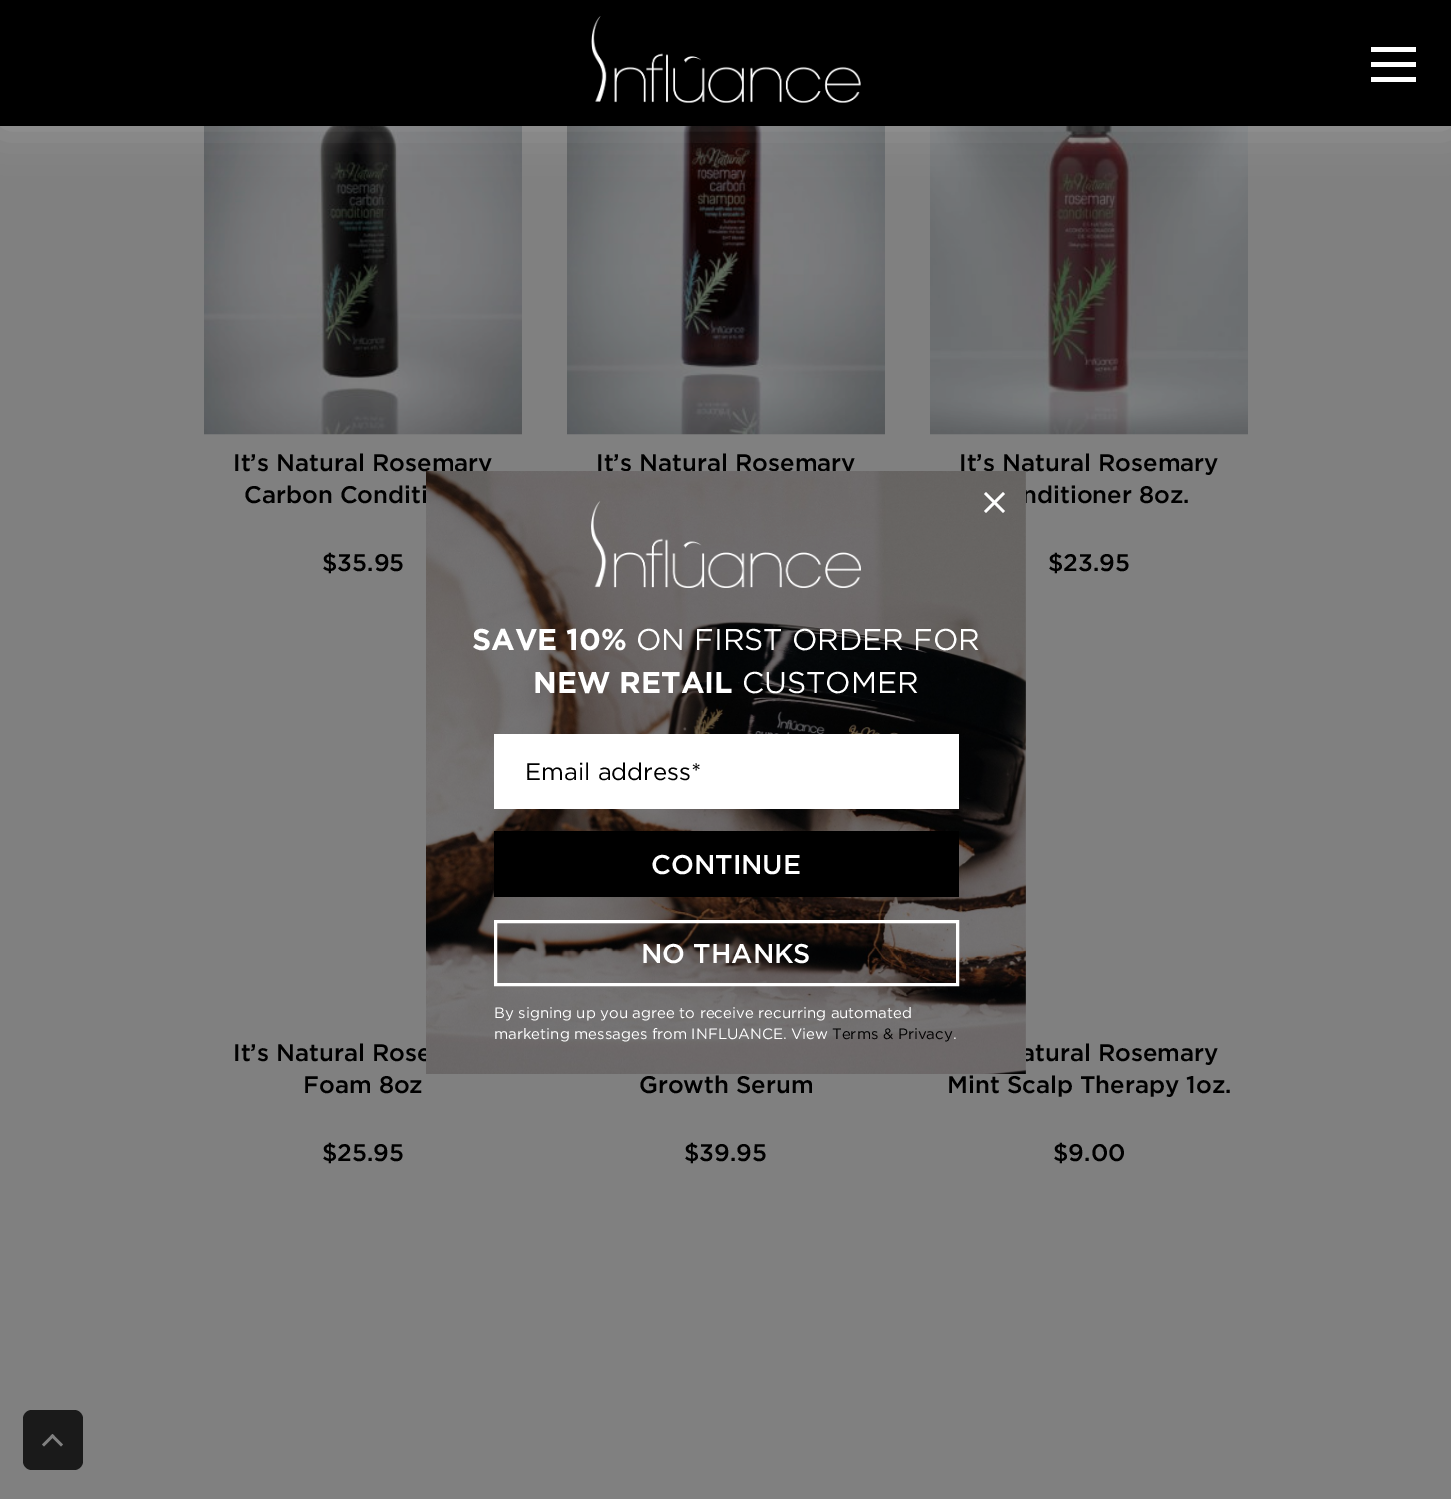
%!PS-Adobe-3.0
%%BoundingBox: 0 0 1451 1499
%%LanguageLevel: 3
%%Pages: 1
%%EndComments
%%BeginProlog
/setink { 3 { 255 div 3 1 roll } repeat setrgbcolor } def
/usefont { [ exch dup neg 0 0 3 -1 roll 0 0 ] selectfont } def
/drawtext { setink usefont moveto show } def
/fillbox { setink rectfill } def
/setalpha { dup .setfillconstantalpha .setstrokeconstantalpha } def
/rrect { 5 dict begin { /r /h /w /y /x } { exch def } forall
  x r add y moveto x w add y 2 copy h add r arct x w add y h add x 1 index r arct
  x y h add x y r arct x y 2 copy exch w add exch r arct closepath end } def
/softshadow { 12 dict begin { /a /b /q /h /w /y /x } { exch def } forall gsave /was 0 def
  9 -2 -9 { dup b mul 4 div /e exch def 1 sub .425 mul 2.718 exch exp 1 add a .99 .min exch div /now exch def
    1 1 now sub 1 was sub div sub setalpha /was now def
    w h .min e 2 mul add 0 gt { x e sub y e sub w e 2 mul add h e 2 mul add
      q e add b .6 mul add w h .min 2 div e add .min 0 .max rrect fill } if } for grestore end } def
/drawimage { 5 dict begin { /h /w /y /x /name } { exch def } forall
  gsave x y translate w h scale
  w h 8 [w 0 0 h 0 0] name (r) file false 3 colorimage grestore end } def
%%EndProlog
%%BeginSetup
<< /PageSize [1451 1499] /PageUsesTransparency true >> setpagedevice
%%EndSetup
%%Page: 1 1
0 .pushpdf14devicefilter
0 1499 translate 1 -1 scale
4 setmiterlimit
0 0 1451 1499 128 128 128 fillbox
(assets/img2.rgb) 204 126 318 309 drawimage
(assets/img3.rgb) 567 126 318 309 drawimage
(assets/img4.rgb) 930 126 318 309 drawimage
255 255 255 setink
0 0 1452 126 0 22.5 0.2 softshadow
0 0 1451 126 0 0 0 fillbox
(assets/img1.rgb) 591 16 270 87 drawimage
1371 62 45 5 255 255 255 fillbox
1371 47 45 5 255 255 255 fillbox
1371 77 45 5 255 255 255 fillbox
(It’s Natural Rosemary) 233 471 /Gotham-Medium 24 0 0 0 drawtext
(Carbon Conditi) 244 503 /Gotham-Medium 24 0 0 0 drawtext
($35.95) 322 571 /Gotham-Medium 24 0 0 0 drawtext
(It’s Natural Rosemary) 596 471 /Gotham-Medium 24 0 0 0 drawtext
(It’s Natural Rosemary) 959 471 /Gotham-Medium 24 0 0 0 drawtext
(nditioner 8oz.) 1022 503 /Gotham-Medium 24 0 0 0 drawtext
($23.95) 1048 571 /Gotham-Medium 24 0 0 0 drawtext
(It’s Natural Rose) 233 1061 /Gotham-Medium 24 0 0 0 drawtext
(Foam 8oz) 303 1093 /Gotham-Medium 24 0 0 0 drawtext
($25.95) 322 1161 /Gotham-Medium 24 0 0 0 drawtext
(Growth Serum) 639 1093 /Gotham-Medium 24 0 0 0 drawtext
($39.95) 684 1161 /Gotham-Medium 24 0 0 0 drawtext
(atural Rosemary) 1021 1061 /Gotham-Medium 24 0 0 0 drawtext
(Mint Scalp Therapy 1oz.) 947 1093 /Gotham-Medium 24 0 0 0 drawtext
($9.00) 1053 1161 /Gotham-Medium 24 0 0 0 drawtext
(assets/img5.rgb) 426 471 600 603 drawimage
0.5 setalpha
426 471 600 603 0 0 0 fillbox
1 setalpha
255 255 255 setink
1003 492 moveto 1005 494 lineto 986 513 lineto 984 511 lineto closepath fill
984 494 moveto 986 492 lineto 1005 511 lineto 1003 513 lineto closepath fill
(assets/img6.rgb) 591 501 270 87 drawimage
(SAVE 10%) 472 650 /Gotham-Bold 30 255 255 255 drawtext
(ON FIRST ORDER FOR) 636 650 /Gotham-Regular 30 255 255 255 drawtext
(NEW RETAIL) 533 693 /Gotham-Bold 30 255 255 255 drawtext
(CUSTOMER) 742 693 /Gotham-Regular 30 255 255 255 drawtext
494 734 465 75 255 255 255 fillbox
(Email address*) 525 780 /Gotham-Regular 24 0 0 0 drawtext
494 831 465 66 0 0 0 fillbox
(CONTINUE) 651 874 /Gotham-Medium 27 255 255 255 drawtext
3 setlinewidth
495.5 921.5 462 63 rectstroke
(NO THANKS) 641 963 /Gotham-Medium 27 255 255 255 drawtext
(By signing up you agree to receive recurring automated) 494 1018 /Gotham-Regular 15 255 255 255 drawtext
(marketing messages from INFLUANCE. View) 494 1039 /Gotham-Regular 15 255 255 255 drawtext
(Terms & Privacy) 832 1039 /Gotham-Regular 15 0 0 0 drawtext
(.) 953 1039 /Gotham-Regular 15 255 255 255 drawtext
26 26 26 setink
23 1410 60 60 9 rrect fill
128 128 128 setink
42 1444.5 moveto 52.5 1434 lineto 54.5 1436 lineto 44 1446.5 lineto closepath fill
50.5 1436 moveto 52.5 1434 lineto 63 1444.5 lineto 61 1446.5 lineto closepath fill
.poppdf14devicefilter showpage
%%EOF
